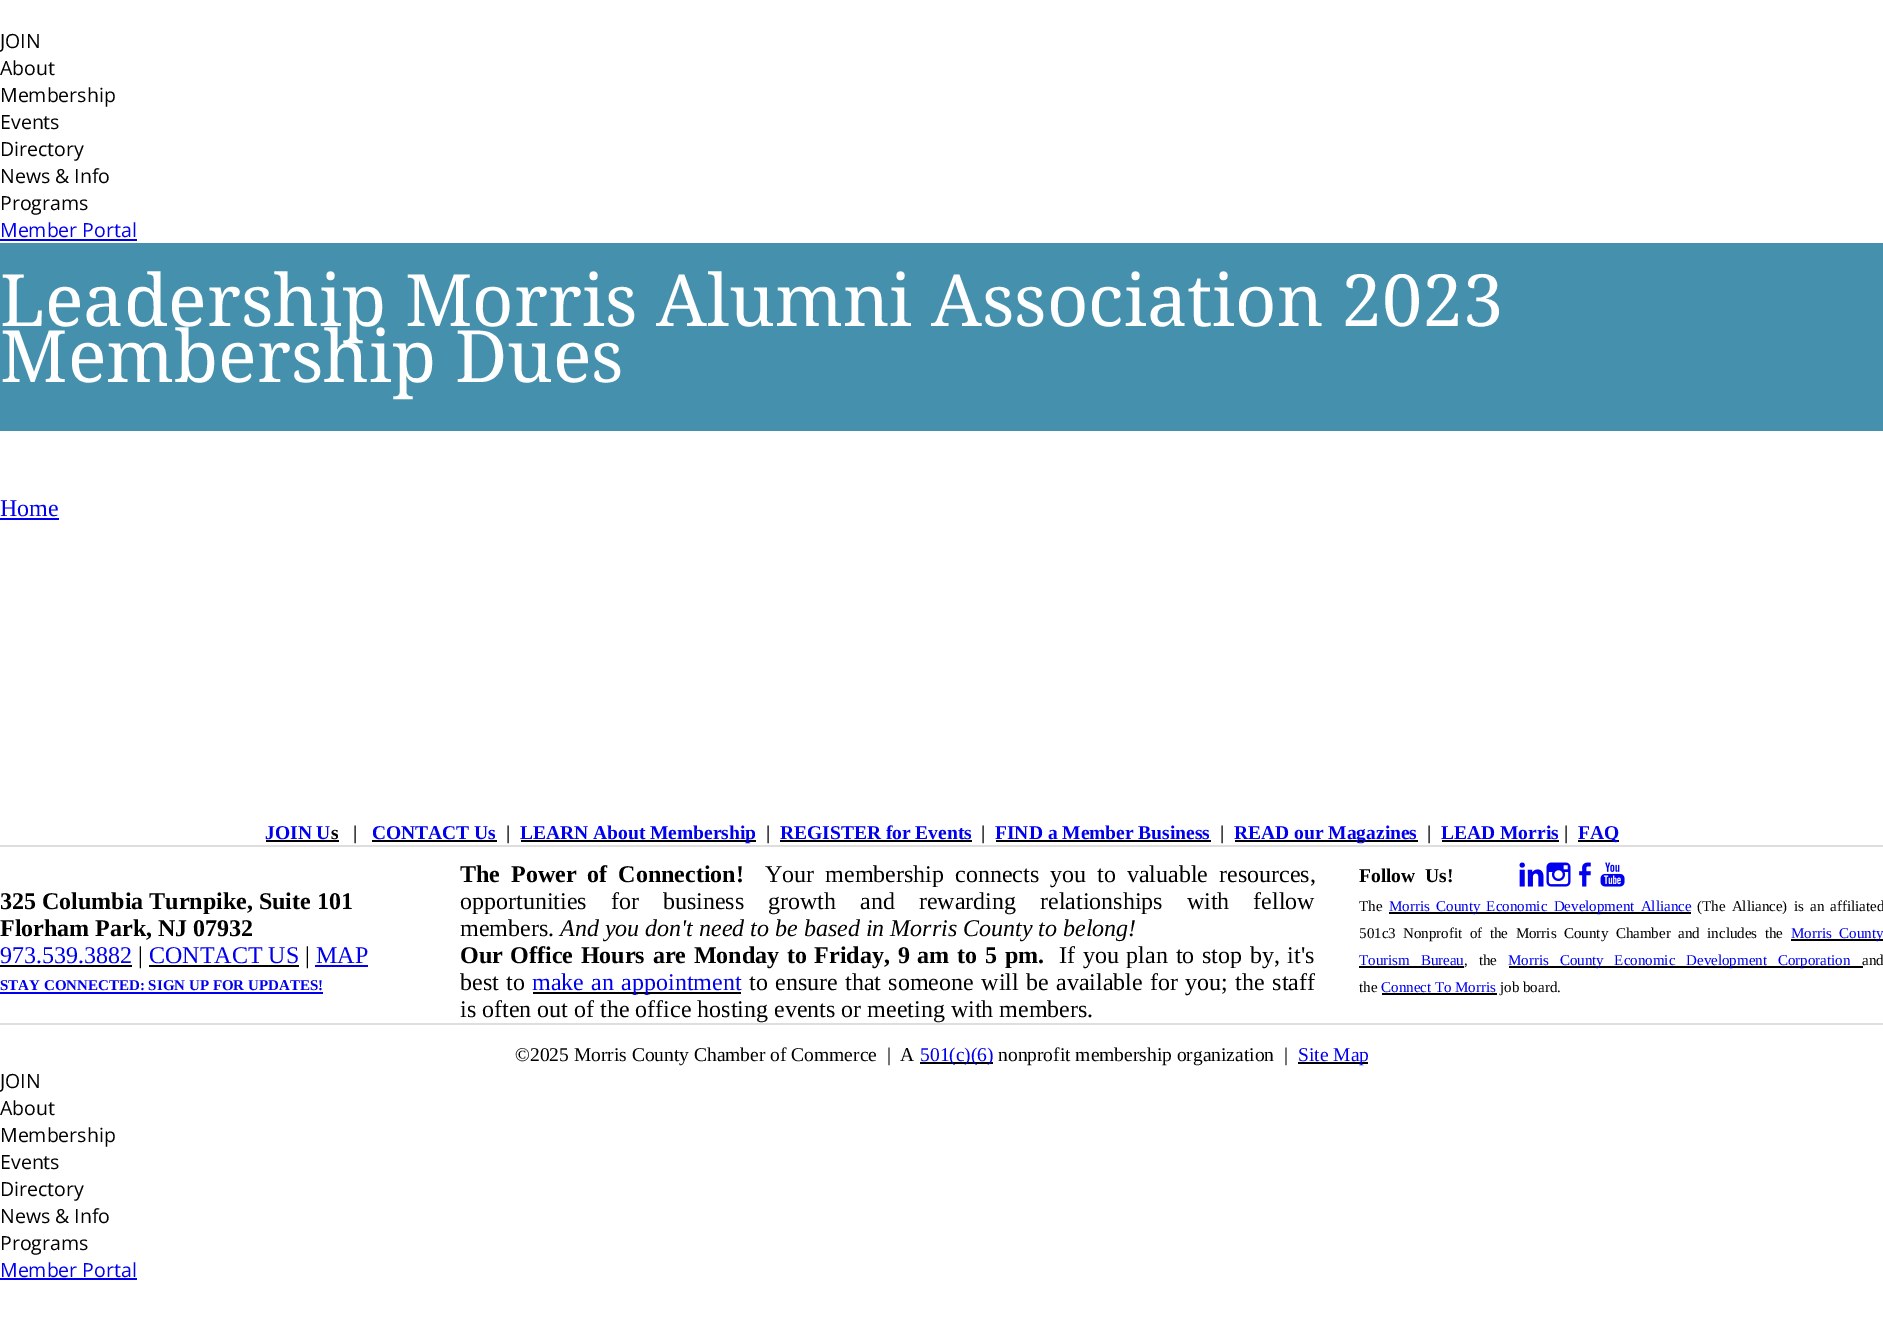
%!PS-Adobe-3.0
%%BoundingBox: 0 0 1883 1329
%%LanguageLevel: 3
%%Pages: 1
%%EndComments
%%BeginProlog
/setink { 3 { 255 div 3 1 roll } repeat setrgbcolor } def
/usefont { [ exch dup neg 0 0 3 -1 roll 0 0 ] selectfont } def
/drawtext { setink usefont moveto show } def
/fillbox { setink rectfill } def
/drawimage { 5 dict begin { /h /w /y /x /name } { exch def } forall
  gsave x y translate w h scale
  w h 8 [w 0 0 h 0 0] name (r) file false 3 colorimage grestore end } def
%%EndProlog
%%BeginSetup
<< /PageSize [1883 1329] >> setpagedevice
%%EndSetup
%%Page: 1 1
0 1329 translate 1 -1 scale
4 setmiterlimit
0 0 1883 1329 255 255 255 fillbox
(JOIN) 0 48 /OpenSans-Regular 19.5 0 0 0 drawtext
(About) 0 75 /OpenSans-Regular 19.5 0 0 0 drawtext
(Membership) 0 102 /OpenSans-Regular 19.5 0 0 0 drawtext
(Events) 0 129 /OpenSans-Regular 19.5 0 0 0 drawtext
(Directory) 0 156 /OpenSans-Regular 19.5 0 0 0 drawtext
(News & Info) 0 183 /OpenSans-Regular 19.5 0 0 0 drawtext
(Programs) 0 210 /OpenSans-Regular 19.5 0 0 0 drawtext
(Member Portal) 0 237 /OpenSans-Regular 19.5 0 0 238 drawtext
0 239 137 2 0 0 238 fillbox
0 243 1883 188 69 145 173 fillbox
(Leadership Morris Alumni Association 2023) 0 326 /DroidSerif-Regular 72 255 255 255 drawtext
(Membership Dues) 0 382 /DroidSerif-Regular 72 255 255 255 drawtext
(Home) 0 516 /LiberationSerif-Regular 24 0 0 238 drawtext
0 518 59 2 0 0 238 fillbox
(JOIN U) 265 839 /LiberationSerif-Bold 19.5 0 0 238 drawtext
(s) 331 839 /LiberationSerif-Bold 19.5 0 0 0 drawtext
266 840 73 2 0 0 0 fillbox
(|) 353 839 /LiberationSerif-Bold 19.5 0 0 0 drawtext
(CONTACT Us) 372 839 /LiberationSerif-Bold 19.5 0 0 238 drawtext
372 840 125 2 0 0 0 fillbox
(|) 506 839 /LiberationSerif-Bold 19.5 0 0 0 drawtext
521 840 235 2 0 0 0 fillbox
(LEARN About Membership) 520 839 /LiberationSerif-Bold 19.5 0 0 238 drawtext
(|) 766 839 /LiberationSerif-Bold 19.5 0 0 0 drawtext
(REGISTER for Events) 780 839 /LiberationSerif-Bold 19.5 0 0 238 drawtext
780 840 192 2 0 0 0 fillbox
(|) 981 839 /LiberationSerif-Bold 19.5 0 0 0 drawtext
(FIND a Member Business) 995 839 /LiberationSerif-Bold 19.5 0 0 238 drawtext
996 840 215 2 0 0 0 fillbox
(|) 1220 839 /LiberationSerif-Bold 19.5 0 0 0 drawtext
1235 840 183 2 0 0 0 fillbox
(READ our Magazines) 1234 839 /LiberationSerif-Bold 19.5 0 0 238 drawtext
(|) 1427 839 /LiberationSerif-Bold 19.5 0 0 0 drawtext
(LEAD Morris) 1441 839 /LiberationSerif-Bold 19.5 0 0 238 drawtext
1442 840 117 2 0 0 0 fillbox
(|) 1564 839 /LiberationSerif-Bold 19.5 0 0 0 drawtext
1578 840 41 2 0 0 0 fillbox
(FAQ) 1578 839 /LiberationSerif-Bold 19.5 0 0 238 drawtext
0 845 1883 2 222 222 222 fillbox
(325 Columbia Turnpike, Suite 101) 0 909 /LiberationSerif-Bold 24 0 0 0 drawtext
(Florham Park, NJ 07932) 0 936 /LiberationSerif-Bold 24 0 0 0 drawtext
(973.539.3882) 0 963 /LiberationSerif-Regular 24 0 0 238 drawtext
0 965 132 2 0 0 0 fillbox
(|) 138 963 /LiberationSerif-Regular 24 0 0 0 drawtext
(CONTACT US) 149 963 /LiberationSerif-Regular 24 0 0 238 drawtext
149 965 150 2 0 0 0 fillbox
(|) 305 963 /LiberationSerif-Regular 24 0 0 0 drawtext
(MAP) 316 963 /LiberationSerif-Regular 24 0 0 238 drawtext
315 965 53 2 0 0 238 fillbox
(STAY CONNECTED: SIGN UP FOR UPDATES!) 0 990 /LiberationSerif-Bold 15 0 0 238 drawtext
0 992 323 2 0 0 238 fillbox
/LiberationSerif-Bold 24 usefont
0 0 0 setink
460 882 moveto 5 0 32 (The Power of Connection!) widthshow
/LiberationSerif-Regular 24 usefont
765 882 moveto 5 0 32 (Your membership connects you to valuable resources,) widthshow
460 909 moveto 18 0 32 (opportunities for business growth and rewarding relationships with fellow) widthshow
(members.) 460 936 /LiberationSerif-Regular 24 0 0 0 drawtext
(And you don't need to be based in Morris County to belong!) 560 936 /LiberationSerif-Italic 24 0 0 0 drawtext
/LiberationSerif-Bold 24 usefont
460 963 moveto 1.75 0 32 (Our Office Hours are Monday to Friday, 9 am to 5 pm.) widthshow
/LiberationSerif-Regular 24 usefont
1059 963 moveto 1.75 0 32 (If you plan to stop by, it's) widthshow
460 990 moveto 1.4 0 32 (best to) widthshow
533 992 208 2 0 0 0 fillbox
0 0 238 setink
532 990 moveto 1.4 0 32 (make an appointment) widthshow
0 0 0 setink
749 990 moveto 1.4 0 32 (to ensure that someone will be available for you; the staff) widthshow
(is often out of the office hosting events or meeting with members.) 460 1017 /LiberationSerif-Regular 24 0 0 0 drawtext
(Follow  Us!) 1359 882 /LiberationSerif-Bold 19.5 0 0 0 drawtext
(assets/img1.rgb) 1519 862 25 25 drawimage
(assets/img2.rgb) 1546 862 25 25 drawimage
(assets/img3.rgb) 1579 862 12 25 drawimage
(assets/img4.rgb) 1600 862 25 25 drawimage
(The) 1359 911 /LiberationSerif-Regular 15 0 0 0 drawtext
1389 912 302 2 0 0 0 fillbox
0 0 238 setink
1389 911 moveto 2.5 0 32 (Morris County Economic Development Alliance) widthshow
0 0 0 setink
1697 911 moveto 2.5 0 32 (\(The Alliance\) is an affiliated) widthshow
1359 938 moveto 3.75 0 32 (501c3 Nonprofit of the Morris County Chamber and includes the) widthshow
1791 939 92 2 0 0 0 fillbox
0 0 238 setink
1791 938 moveto 3.75 0 32 (Morris County) widthshow
1359 965 moveto 7 0 32 (Tourism Bureau) widthshow
0 0 0 setink
1464 965 moveto 7 0 32 (, the) widthshow
1359 966 105 2 0 0 0 fillbox
1509 966 342 2 0 0 0 fillbox
0 0 238 setink
1508 965 moveto 7 0 32 (Morris County Economic Development Corporation) widthshow
1851 966 12 2 0 0 0 fillbox
(and) 1862 965 /LiberationSerif-Regular 15 0 0 0 drawtext
(the) 1359 992 /LiberationSerif-Regular 15 0 0 0 drawtext
(Connect To Morris) 1381 992 /LiberationSerif-Regular 15 0 0 238 drawtext
1382 993 115 2 0 0 0 fillbox
(job board.) 1500 992 /LiberationSerif-Regular 15 0 0 0 drawtext
0 1023 1883 2 222 222 222 fillbox
(©2025 Morris County Chamber of Commerce  |  A) 515 1061 /LiberationSerif-Regular 19.5 0 0 0 drawtext
920 1062 73 2 0 0 0 fillbox
(501\(c\)\(6\)) 920 1061 /LiberationSerif-Regular 19.5 0 0 238 drawtext
(nonprofit membership organization  |) 998 1061 /LiberationSerif-Regular 19.5 0 0 0 drawtext
1298 1062 70 2 0 0 0 fillbox
(Site Map) 1298 1061 /LiberationSerif-Regular 19.5 0 0 238 drawtext
(JOIN) 0 1088 /OpenSans-Regular 19.5 0 0 0 drawtext
(About) 0 1115 /OpenSans-Regular 19.5 0 0 0 drawtext
(Membership) 0 1142 /OpenSans-Regular 19.5 0 0 0 drawtext
(Events) 0 1169 /OpenSans-Regular 19.5 0 0 0 drawtext
(Directory) 0 1196 /OpenSans-Regular 19.5 0 0 0 drawtext
(News & Info) 0 1223 /OpenSans-Regular 19.5 0 0 0 drawtext
(Programs) 0 1250 /OpenSans-Regular 19.5 0 0 0 drawtext
(Member Portal) 0 1277 /OpenSans-Regular 19.5 0 0 238 drawtext
0 1278 137 2 0 0 238 fillbox
showpage
%%EOF
